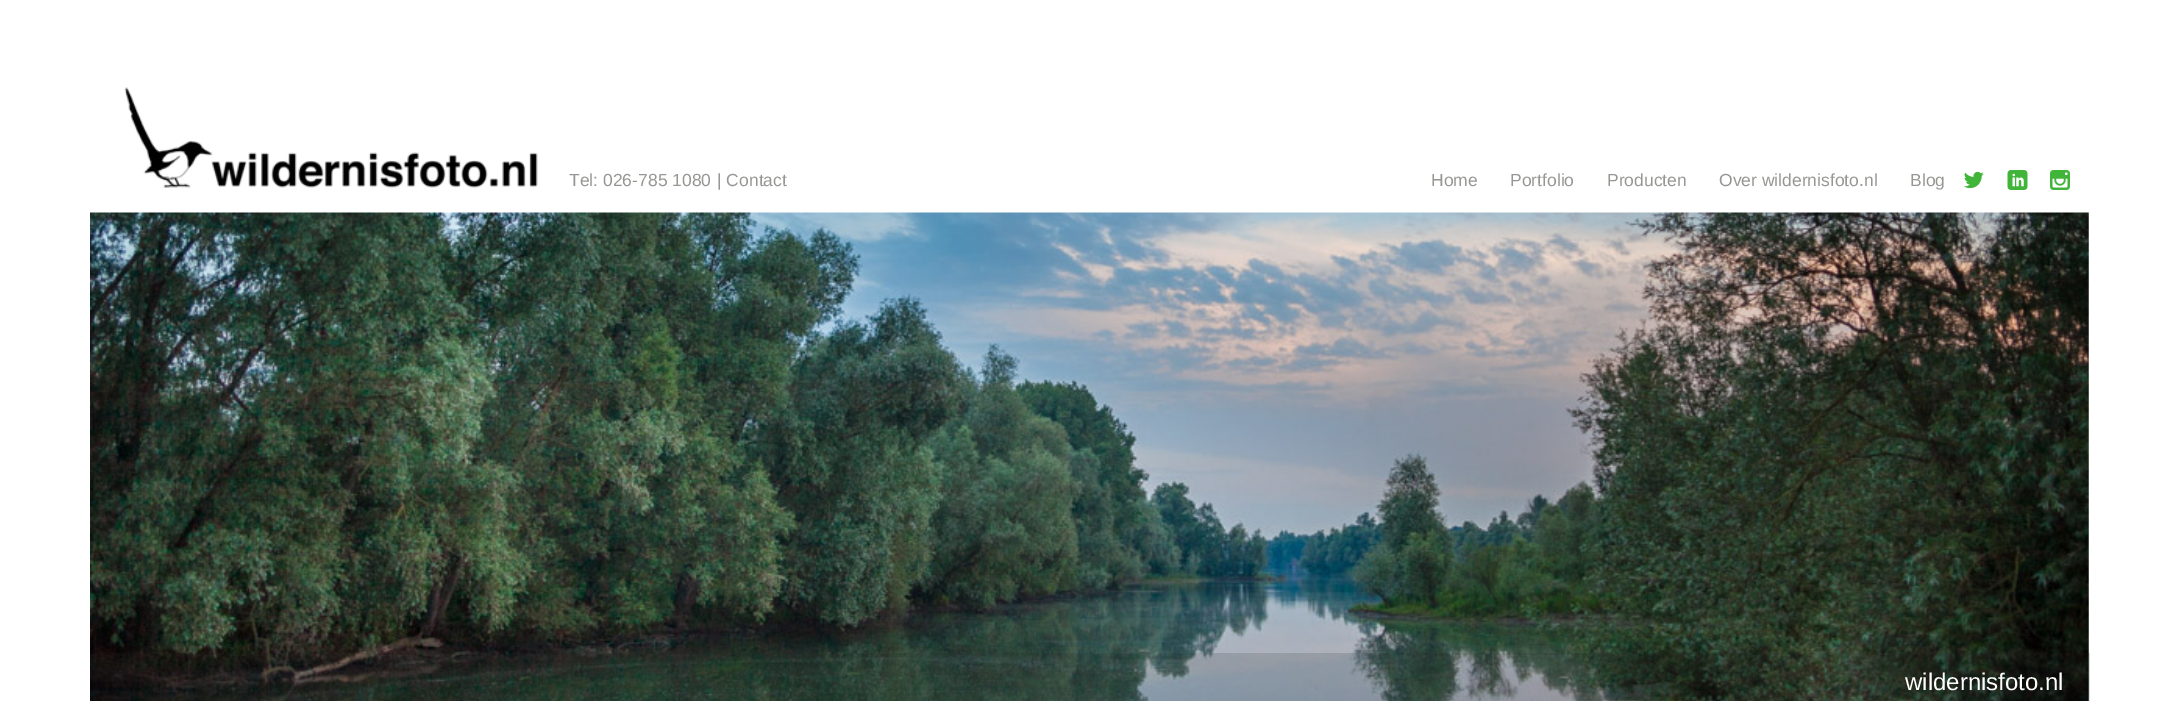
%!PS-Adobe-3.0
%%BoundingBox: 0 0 2180 701
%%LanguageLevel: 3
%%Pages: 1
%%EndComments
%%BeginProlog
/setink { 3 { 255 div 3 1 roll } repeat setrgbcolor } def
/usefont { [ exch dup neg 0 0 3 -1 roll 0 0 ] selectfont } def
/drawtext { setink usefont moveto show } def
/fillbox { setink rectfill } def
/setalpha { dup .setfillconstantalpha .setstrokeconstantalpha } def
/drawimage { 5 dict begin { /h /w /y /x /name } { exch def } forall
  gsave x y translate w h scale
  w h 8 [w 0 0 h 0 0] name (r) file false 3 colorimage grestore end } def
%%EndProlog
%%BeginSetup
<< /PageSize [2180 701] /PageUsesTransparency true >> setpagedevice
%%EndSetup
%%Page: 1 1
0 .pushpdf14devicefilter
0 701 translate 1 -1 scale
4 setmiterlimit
0 0 2180 701 255 255 255 fillbox
(assets/img1.rgb) 124 87 414 101 drawimage
(Tel: 026-785 1080) 569 186 /LiberationSans-Regular 17.5 150 150 147 drawtext
(| Contact) 717 186 /LiberationSans-Regular 17.5 150 150 147 drawtext
(Home) 1431 186 /LiberationSans-Regular 17.5 150 150 147 drawtext
(Portfolio) 1510 186 /LiberationSans-Regular 17.5 150 150 147 drawtext
(Producten) 1607 186 /LiberationSans-Regular 17.5 150 150 147 drawtext
(Over wildernisfoto.nl) 1719 186 /LiberationSans-Regular 17.5 150 150 147 drawtext
(Blog) 1910 186 /LiberationSans-Regular 17.5 150 150 147 drawtext
(assets/img2.rgb) 1963 171 21 18 drawimage
(assets/img3.rgb) 2007 170 21 20 drawimage
(assets/img4.rgb) 2050 170 20 20 drawimage
(assets/img5.rgb) 90 212 1999 489 drawimage
0.15 setalpha
90 653 2000 48 34 34 34 fillbox
1 setalpha
(wildernisfoto.nl) 1905 690 /LiberationSans-Regular 24 255 255 255 drawtext
.poppdf14devicefilter showpage
%%EOF
